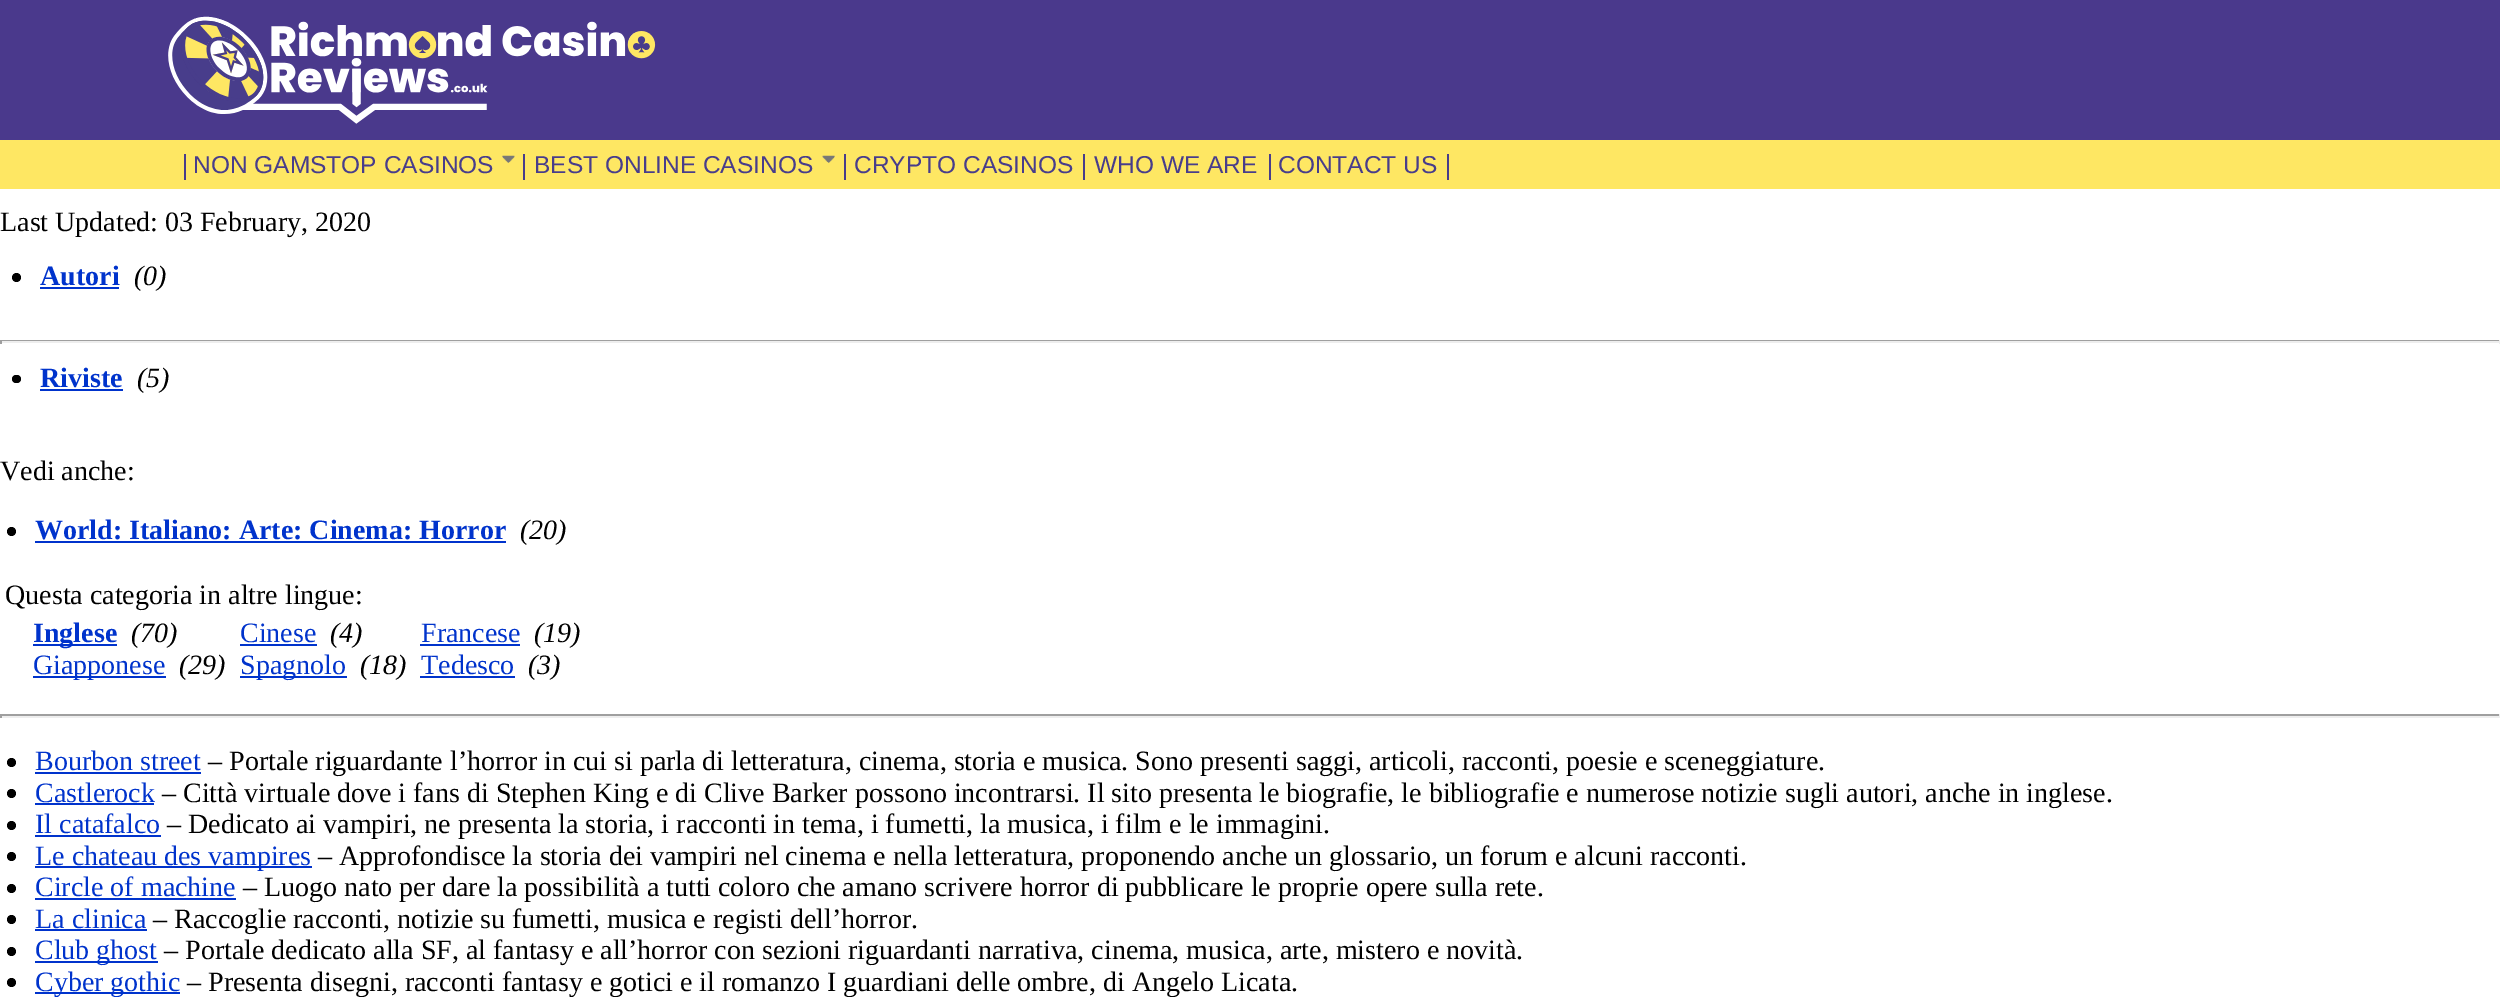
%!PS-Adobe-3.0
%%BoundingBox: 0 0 2500 997
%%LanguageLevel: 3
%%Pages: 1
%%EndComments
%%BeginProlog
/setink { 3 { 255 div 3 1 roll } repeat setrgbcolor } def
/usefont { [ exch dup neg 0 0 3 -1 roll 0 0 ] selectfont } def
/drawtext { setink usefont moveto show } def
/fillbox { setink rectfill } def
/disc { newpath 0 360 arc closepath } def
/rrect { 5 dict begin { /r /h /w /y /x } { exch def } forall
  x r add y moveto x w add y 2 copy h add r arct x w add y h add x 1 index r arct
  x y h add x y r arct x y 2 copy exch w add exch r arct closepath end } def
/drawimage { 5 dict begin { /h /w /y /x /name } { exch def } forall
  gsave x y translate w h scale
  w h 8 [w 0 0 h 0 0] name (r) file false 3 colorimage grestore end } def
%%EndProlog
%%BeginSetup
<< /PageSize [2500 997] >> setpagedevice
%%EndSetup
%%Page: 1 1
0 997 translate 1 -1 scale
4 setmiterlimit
0 0 2500 997 255 255 255 fillbox
0 0 2500 140 74 57 140 fillbox
(assets/img1.rgb) 168 16 488 108 drawimage
0 140 2500 49 254 231 99 fillbox
184 154 2 26 72 61 139 fillbox
(NON GAMSTOP CASINOS) 193 173 /LiberationSans-Regular 24.5 72 61 139 drawtext
(assets/img2.rgb) 502 155 13 8 drawimage
523 154 2 26 72 61 139 fillbox
(BEST ONLINE CASINOS) 534 173 /LiberationSans-Regular 24.5 72 61 139 drawtext
(assets/img3.rgb) 822 155 13 8 drawimage
844 154 2 26 72 61 139 fillbox
(CRYPTO CASINOS) 854 173 /LiberationSans-Regular 24.5 72 61 139 drawtext
1083 154 2 26 72 61 139 fillbox
(WHO WE ARE) 1094 173 /LiberationSans-Regular 24.5 72 61 139 drawtext
1269 154 2 26 72 61 139 fillbox
(CONTACT US) 1278 173 /LiberationSans-Regular 24.5 72 61 139 drawtext
1447 154 2 26 72 61 139 fillbox
(Last Updated: 03 February, 2020) 0 231 /LiberationSerif-Regular 28 0 0 0 drawtext
16.5 277.5 4.5 disc fill
(Autori) 40 285 /LiberationSerif-Bold 28 0 51 204 drawtext
40 287 79 2 0 51 204 fillbox
(\(0\)) 134 285 /LiberationSerif-Italic 28 0 0 0 drawtext
0 340 2500 1 159 159 159 fillbox
2499 340 1 4 238 238 238 fillbox
0 341 2500 2 238 238 238 fillbox
0 340 2 4 159 159 159 fillbox
0 0 0 setink
12 375 9 8 4 rrect fill
(Riviste) 40 387 /LiberationSerif-Bold 28 0 51 204 drawtext
40 389 83 2 0 51 204 fillbox
(\(5\)) 137 387 /LiberationSerif-Italic 28 0 0 0 drawtext
(Vedi anche:) 0 480 /LiberationSerif-Regular 28 0 0 0 drawtext
11.5 531.5 4.5 disc fill
(World: Italiano: Arte: Cinema: Horror) 35 539 /LiberationSerif-Bold 28 0 51 204 drawtext
35 541 471 2 0 51 204 fillbox
(\(20\)) 520 539 /LiberationSerif-Italic 28 0 0 0 drawtext
(Questa categoria in altre lingue:) 5 604 /LiberationSerif-Regular 28 0 0 0 drawtext
33 644 84 2 0 51 204 fillbox
(Inglese) 33 642 /LiberationSerif-Bold 28 0 51 204 drawtext
(\(70\)) 131 642 /LiberationSerif-Italic 28 0 0 0 drawtext
(Cinese) 240 642 /LiberationSerif-Regular 28 0 51 204 drawtext
240 644 77 2 0 51 204 fillbox
(\(4\)) 330 642 /LiberationSerif-Italic 28 0 0 0 drawtext
(Francese) 421 642 /LiberationSerif-Regular 28 0 51 204 drawtext
420 644 100 2 0 51 204 fillbox
(\(19\)) 534 642 /LiberationSerif-Italic 28 0 0 0 drawtext
33 676 133 2 0 51 204 fillbox
(Giapponese) 33 674 /LiberationSerif-Regular 28 0 51 204 drawtext
(\(29\)) 179 674 /LiberationSerif-Italic 28 0 0 0 drawtext
240 676 107 2 0 51 204 fillbox
(Spagnolo) 240 674 /LiberationSerif-Regular 28 0 51 204 drawtext
(\(18\)) 360 674 /LiberationSerif-Italic 28 0 0 0 drawtext
(Tedesco) 421 674 /LiberationSerif-Regular 28 0 51 204 drawtext
420 676 95 2 0 51 204 fillbox
(\(3\)) 528 674 /LiberationSerif-Italic 28 0 0 0 drawtext
0 714 2500 2 159 159 159 fillbox
2499 714 1 4 238 238 238 fillbox
0 716 2500 2 238 238 238 fillbox
0 714 2 4 159 159 159 fillbox
0 0 0 setink
11.5 762.5 4.5 disc fill
(Bourbon street) 35 770 /LiberationSerif-Regular 28 0 51 204 drawtext
35 772 166 2 0 51 204 fillbox
(– Portale riguardante l’horror in cui si parla di letteratura, cinema, storia e musica. Sono presenti saggi, articoli, racconti, poesie e sceneggiature.) 208 770 /LiberationSerif-Regular 28 0 0 0 drawtext
11.5 793.5 4.5 disc fill
(Castlerock) 35 802 /LiberationSerif-Regular 28 0 51 204 drawtext
35 803 119 2 0 51 204 fillbox
(– Città virtuale dove i fans di Stephen King e di Clive Barker possono incontrarsi. Il sito presenta le biografie, le bibliografie e numerose notizie sugli autori, anche in inglese.) 162 802 /LiberationSerif-Regular 28 0 0 0 drawtext
11.5 825.5 4.5 disc fill
(Il catafalco) 35 833 /LiberationSerif-Regular 28 0 51 204 drawtext
35 835 126 2 0 51 204 fillbox
(– Dedicato ai vampiri, ne presenta la storia, i racconti in tema, i fumetti, la musica, i film e le immagini.) 167 833 /LiberationSerif-Regular 28 0 0 0 drawtext
11.5 856.5 4.5 disc fill
35 866 277 2 0 51 204 fillbox
(Le chateau des vampires) 35 865 /LiberationSerif-Regular 28 0 51 204 drawtext
(– Approfondisce la storia dei vampiri nel cinema e nella letteratura, proponendo anche un glossario, un forum e alcuni racconti.) 318 865 /LiberationSerif-Regular 28 0 0 0 drawtext
11.5 888.5 4.5 disc fill
(Circle of machine) 35 896 /LiberationSerif-Regular 28 0 51 204 drawtext
35 898 201 2 0 51 204 fillbox
(– Luogo nato per dare la possibilità a tutti coloro che amano scrivere horror di pubblicare le proprie opere sulla rete.) 243 896 /LiberationSerif-Regular 28 0 0 0 drawtext
11.5 919.5 4.5 disc fill
(La clinica) 35 928 /LiberationSerif-Regular 28 0 51 204 drawtext
35 929 112 2 0 51 204 fillbox
(– Raccoglie racconti, notizie su fumetti, musica e registi dell’horror.) 153 928 /LiberationSerif-Regular 28 0 0 0 drawtext
11.5 951.5 4.5 disc fill
35 961 123 2 0 51 204 fillbox
(Club ghost) 35 959 /LiberationSerif-Regular 28 0 51 204 drawtext
(– Portale dedicato alla SF, al fantasy e all’horror con sezioni riguardanti narrativa, cinema, musica, arte, mistero e novità.) 164 959 /LiberationSerif-Regular 28 0 0 0 drawtext
11.5 982.5 4.5 disc fill
35 992 145 2 0 51 204 fillbox
(Cyber gothic) 35 991 /LiberationSerif-Regular 28 0 51 204 drawtext
(– Presenta disegni, racconti fantasy e gotici e il romanzo I guardiani delle ombre, di Angelo Licata.) 187 991 /LiberationSerif-Regular 28 0 0 0 drawtext
showpage
%%EOF
